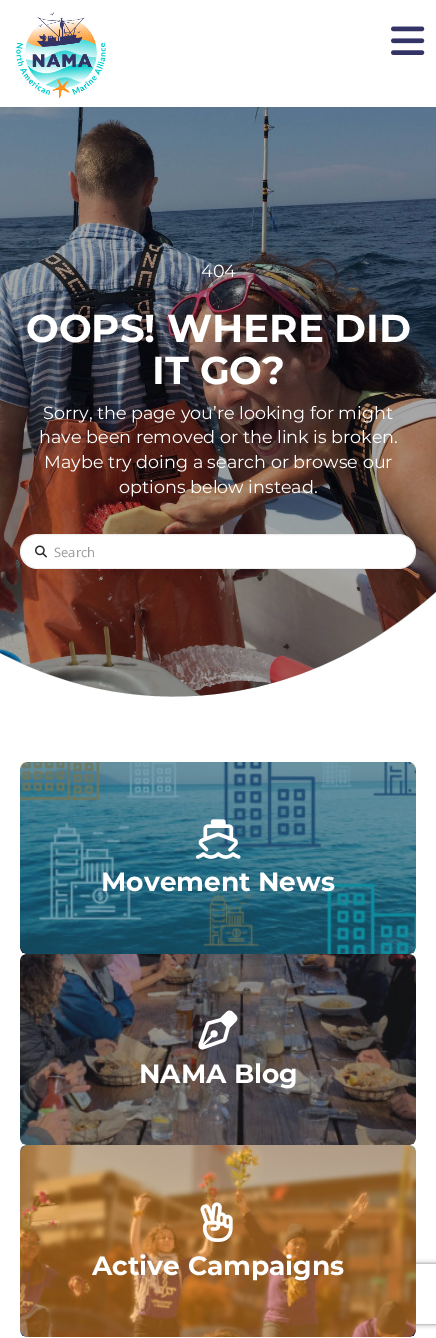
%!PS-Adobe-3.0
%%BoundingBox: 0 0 436 1338
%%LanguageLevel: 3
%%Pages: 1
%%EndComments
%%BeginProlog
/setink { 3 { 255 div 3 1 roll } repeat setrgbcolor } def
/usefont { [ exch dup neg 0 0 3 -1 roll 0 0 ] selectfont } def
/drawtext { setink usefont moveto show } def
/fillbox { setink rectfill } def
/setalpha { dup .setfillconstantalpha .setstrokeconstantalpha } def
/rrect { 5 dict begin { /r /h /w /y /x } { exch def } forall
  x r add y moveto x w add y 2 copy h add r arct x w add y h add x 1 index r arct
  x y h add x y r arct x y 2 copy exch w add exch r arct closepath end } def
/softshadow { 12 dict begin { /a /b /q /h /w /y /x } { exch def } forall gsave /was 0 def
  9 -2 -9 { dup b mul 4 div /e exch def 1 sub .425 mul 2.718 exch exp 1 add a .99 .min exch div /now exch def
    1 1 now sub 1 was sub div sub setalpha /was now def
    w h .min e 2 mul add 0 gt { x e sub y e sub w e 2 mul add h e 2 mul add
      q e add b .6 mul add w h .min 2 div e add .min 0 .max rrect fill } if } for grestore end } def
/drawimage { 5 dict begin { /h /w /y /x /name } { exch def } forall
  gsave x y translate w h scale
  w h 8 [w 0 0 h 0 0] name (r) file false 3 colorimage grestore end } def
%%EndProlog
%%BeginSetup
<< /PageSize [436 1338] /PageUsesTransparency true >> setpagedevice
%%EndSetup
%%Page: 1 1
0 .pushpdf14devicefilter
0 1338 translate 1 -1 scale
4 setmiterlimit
0 0 436 1338 255 255 255 fillbox
(assets/img1.rgb) 16 12 90 87 drawimage
(assets/img2.rgb) 391 26 34 29 drawimage
(assets/img3.rgb) 0 107 436 590 drawimage
0.35 setalpha
0 0 0 setink
0 107 moveto 436 107 lineto 436 592 lineto 314 702 146 730 0 653 curveto closepath fill
1 setalpha
(404) 201 277 /Montserrat-Regular 17.6 255 255 255 drawtext
(OOPS! WHERE DID) 26 342 /Montserrat-Bold 38.75 255 255 255 drawtext
(IT GO?) 152 384 /Montserrat-Bold 38.75 255 255 255 drawtext
(Sorry, the page you’re looking for might) 43 419 /Montserrat-Regular 17.6 255 255 255 drawtext
(have been removed or the link is broken.) 39 443 /Montserrat-Regular 17.6 255 255 255 drawtext
(Maybe try doing a search or browse our) 44 468 /Montserrat-Regular 17.6 255 255 255 drawtext
(options below instead.) 119 493 /Montserrat-Regular 17.6 255 255 255 drawtext
20 534 396 35 17.5 rrect fill
0.07 setalpha
0 0 0 setink
20.5 534.5 395 34 17 rrect stroke
1 setalpha
(assets/img4.rgb) 35 545 12 13 drawimage
(Search) 54 557 /OpenSans-Regular 13 153 153 153 drawtext
(assets/img5.rgb) 20 762 396 192 drawimage
0.6 setalpha
21 98 128 setink
20 762 396 192 9 rrect fill
1 setalpha
(assets/img6.rgb) 196 819 45 40 drawimage
(Movement News) 101 891 /Montserrat-Bold 26.5 255 255 255 drawtext
(assets/img7.rgb) 20 954 396 191 drawimage
0.48 setalpha
38 37 40 setink
20 954 396 191 9 rrect fill
1 setalpha
(assets/img8.rgb) 198 1010 40 40 drawimage
(NAMA Blog) 139 1083 /Montserrat-Bold 26.5 255 255 255 drawtext
gsave
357 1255 moveto 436 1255 lineto 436 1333 lineto 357 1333 lineto closepath 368 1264 moveto 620 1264 lineto 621 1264 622 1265 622 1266 curveto 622 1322 lineto 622 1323 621 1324 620 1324 curveto 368 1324 lineto 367 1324 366 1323 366 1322 curveto 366 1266 lineto 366 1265 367 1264 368 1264 curveto closepath eoclip newpath
128 128 128 setink
366 1264 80 60 2 2.5 1 softshadow
grestore
(assets/img9.rgb) 20 1145 396 192 drawimage
0.49 setalpha
255 148 31 setink
20 1145 396 192 9 rrect fill
1 setalpha
(assets/img10.rgb) 200 1202 33 40 drawimage
(Active Campaigns) 92 1275 /Montserrat-Bold 26.5 255 255 255 drawtext
.poppdf14devicefilter showpage
%%EOF
